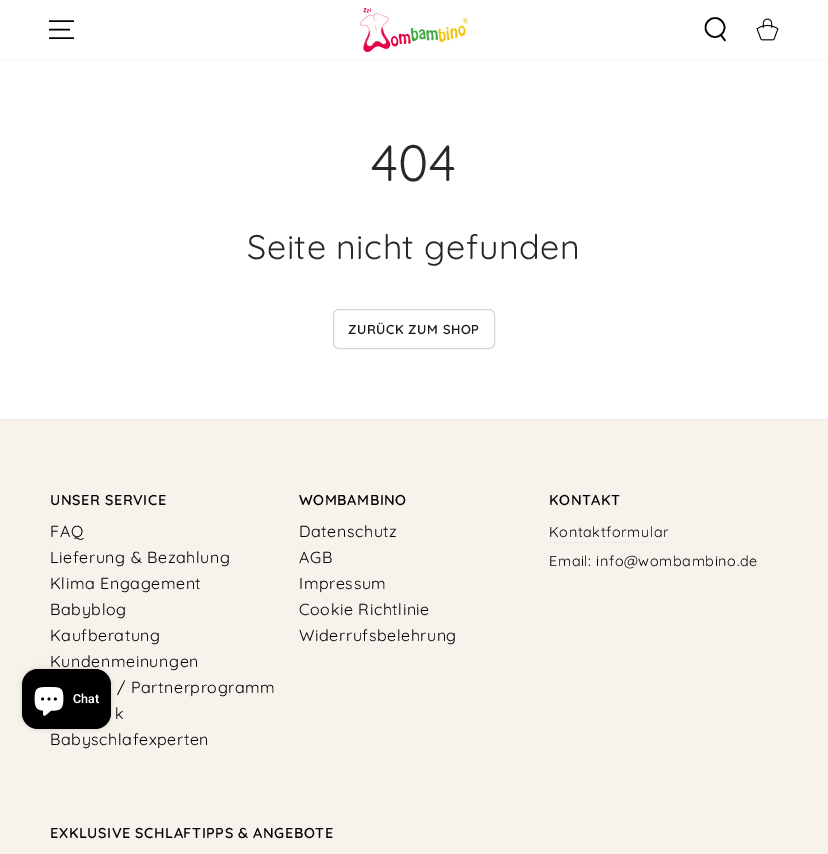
%!PS-Adobe-3.0
%%BoundingBox: 0 0 828 854
%%LanguageLevel: 3
%%Pages: 1
%%EndComments
%%BeginProlog
/setink { 3 { 255 div 3 1 roll } repeat setrgbcolor } def
/usefont { [ exch dup neg 0 0 3 -1 roll 0 0 ] selectfont } def
/drawtext { setink usefont moveto show } def
/fillbox { setink rectfill } def
/setalpha { dup .setfillconstantalpha .setstrokeconstantalpha } def
/disc { newpath 0 360 arc closepath } def
/rrect { 5 dict begin { /r /h /w /y /x } { exch def } forall
  x r add y moveto x w add y 2 copy h add r arct x w add y h add x 1 index r arct
  x y h add x y r arct x y 2 copy exch w add exch r arct closepath end } def
/softshadow { 12 dict begin { /a /b /q /h /w /y /x } { exch def } forall gsave /was 0 def
  9 -2 -9 { dup b mul 4 div /e exch def 1 sub .425 mul 2.718 exch exp 1 add a .99 .min exch div /now exch def
    1 1 now sub 1 was sub div sub setalpha /was now def
    w h .min e 2 mul add 0 gt { x e sub y e sub w e 2 mul add h e 2 mul add
      q e add b .6 mul add w h .min 2 div e add .min 0 .max rrect fill } if } for grestore end } def
/drawimage { 5 dict begin { /h /w /y /x /name } { exch def } forall
  gsave x y translate w h scale
  w h 8 [w 0 0 h 0 0] name (r) file false 3 colorimage grestore end } def
%%EndProlog
%%BeginSetup
<< /PageSize [828 854] /PageUsesTransparency true >> setpagedevice
%%EndSetup
%%Page: 1 1
0 .pushpdf14devicefilter
0 854 translate 1 -1 scale
4 setmiterlimit
0 0 828 854 255 255 255 fillbox
0 59 828 1 249 246 244 fillbox
0 0 0 setink
1.4 setlinewidth
49 38 moveto 74 38 lineto 49 29.5 moveto 70 29.5 lineto 49 21 moveto 74 21 lineto stroke
(assets/img1.rgb) 360 8 108 44 drawimage
1.6 setlinewidth
715 27.5 9.5 disc stroke
1 setlinecap
721 35 moveto 725 40.5 lineto stroke
(assets/img2.rgb) 756 18 23 23 drawimage
/Quicksand-Regular 51 usefont
40 40 40 setink
371 181 moveto 0.6 0 (404) ashow
/Quicksand-Regular 34 usefont
247 259 moveto 0.6 0 (Seite nicht gefunden) ashow
210 213 217 setink
1 setlinewidth
0 setlinecap
333.5 309.5 161 39 5.5 rrect stroke
/Quicksand-SemiBold 13 usefont
26 27 24 setink
348 334 moveto 0.6 0 (ZURÜCK ZUM SHOP) ashow
0 420 828 434 247 243 236 fillbox
0 419 828 1 235 235 235 fillbox
/Quicksand-SemiBold 14.4 usefont
0 0 0 setink
50 505 moveto 0.6 0 (UNSER SERVICE) ashow
/Quicksand-Regular 16 usefont
50 537 moveto 0.6 0 (FAQ) ashow
50 563 moveto 0.6 0 (Lieferung & Bezahlung) ashow
50 589 moveto 0.6 0 (Klima Engagement) ashow
50 615 moveto 0.6 0 (Babyblog) ashow
50 641 moveto 0.6 0 (Kaufberatung) ashow
50 667 moveto 0.6 0 (Kundenmeinungen) ashow
117 693 moveto 0.6 0 (/ Partnerprogramm) ashow
115 719 moveto 0.6 0 (k) ashow
50 745 moveto 0.6 0 (Babyschlafexperten) ashow
/Quicksand-SemiBold 14.4 usefont
299 505 moveto 0.6 0 (WOMBAMBINO) ashow
/Quicksand-Regular 16 usefont
299 537 moveto 0.6 0 (Datenschutz) ashow
299 563 moveto 0.6 0 (AGB) ashow
299 589 moveto 0.6 0 (Impressum) ashow
299 615 moveto 0.6 0 (Cookie Richtlinie) ashow
299 641 moveto 0.6 0 (Widerrufsbelehrung) ashow
/Quicksand-SemiBold 14.4 usefont
549 505 moveto 0.6 0 (KONTAKT) ashow
/Quicksand-Regular 14.4 usefont
549 537 moveto 0.6 0 (Kontaktformular) ashow
549 542 120 1 235 235 235 fillbox
0 0 0 setink
549 566 moveto 0.6 0 (Email: info@wombambino.de) ashow
/Quicksand-SemiBold 14.4 usefont
50 838 moveto 0.6 0 (EXKLUSIVE SCHLAFTIPPS & ANGEBOTE) ashow
22 669 89 60 16 2.5 0.15 softshadow
22 669 89 60 16 rrect fill
(assets/img3.rgb) 34 687 30 29 drawimage
(Chat) 73 703 /Roboto-SemiBold 12.5 255 255 255 drawtext
.poppdf14devicefilter showpage
%%EOF
